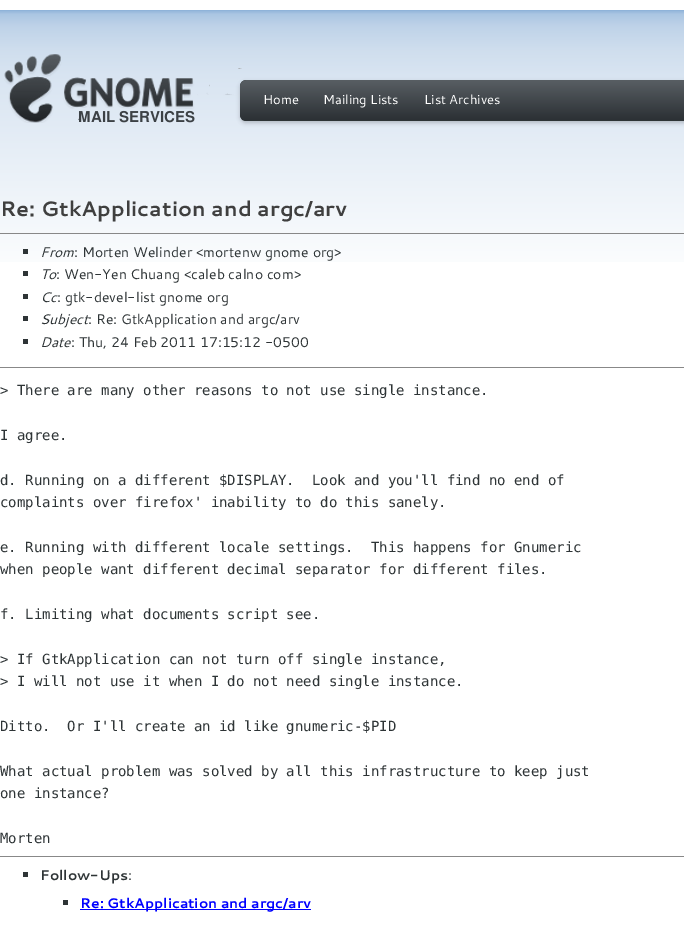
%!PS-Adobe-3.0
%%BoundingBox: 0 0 684 928
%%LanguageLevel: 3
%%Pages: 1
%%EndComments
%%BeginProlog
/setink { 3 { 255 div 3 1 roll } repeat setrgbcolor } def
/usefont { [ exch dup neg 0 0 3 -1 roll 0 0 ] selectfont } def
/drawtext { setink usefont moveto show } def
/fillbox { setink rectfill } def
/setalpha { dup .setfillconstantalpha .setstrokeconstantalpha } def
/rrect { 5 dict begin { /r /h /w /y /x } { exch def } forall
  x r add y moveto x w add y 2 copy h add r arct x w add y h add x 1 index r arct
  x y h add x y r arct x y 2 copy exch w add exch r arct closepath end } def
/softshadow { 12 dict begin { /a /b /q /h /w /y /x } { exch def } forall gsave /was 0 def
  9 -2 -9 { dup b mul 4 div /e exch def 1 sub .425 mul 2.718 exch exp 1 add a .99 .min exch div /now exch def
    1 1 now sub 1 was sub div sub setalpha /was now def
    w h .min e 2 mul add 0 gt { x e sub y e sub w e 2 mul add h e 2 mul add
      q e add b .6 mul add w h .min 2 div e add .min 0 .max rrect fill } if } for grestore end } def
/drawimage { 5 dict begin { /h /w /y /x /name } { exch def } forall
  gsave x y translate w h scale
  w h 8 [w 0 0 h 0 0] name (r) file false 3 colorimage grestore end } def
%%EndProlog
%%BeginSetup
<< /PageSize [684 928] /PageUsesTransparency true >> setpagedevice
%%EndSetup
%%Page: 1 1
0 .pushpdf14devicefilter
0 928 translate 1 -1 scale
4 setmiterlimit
0 0 684 928 255 255 255 fillbox
(assets/img1.rgb) 0 10 684 252 drawimage
(assets/img2.rgb) 4 54 238 69 drawimage
0 0 0 setink
240 82 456 41 6 2 0.2 softshadow
46 52 54 setink
240 80 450 41 6 rrect fill
(assets/img3.rgb) 240 80 444 40 drawimage
(Home) 263 104 /Cantarell-Regular 13 255 255 255 drawtext
(Mailing Lists) 323 104 /Cantarell-Regular 13 255 255 255 drawtext
(List Archives) 424 104 /Cantarell-Regular 13 255 255 255 drawtext
(Re: GtkApplication and argc/arv) 0 216 /Cantarell-Bold 21 63 63 63 drawtext
0 233 684 1 136 136 136 fillbox
23 249 5 5 46 52 54 fillbox
(From) 40 257 /Cantarell-Italic 14 46 52 54 drawtext
(: Morten Welinder <mortenw gnome org>) 74 257 /Cantarell-Regular 14 46 52 54 drawtext
23 271 5 5 46 52 54 fillbox
(To) 40 279 /Cantarell-Italic 14 46 52 54 drawtext
(: Wen-Yen Chuang <caleb calno com>) 56 279 /Cantarell-Regular 14 46 52 54 drawtext
23 294 5 5 46 52 54 fillbox
(Cc) 40 302 /Cantarell-Italic 14 46 52 54 drawtext
(: gtk-devel-list gnome org) 57 302 /Cantarell-Regular 14 46 52 54 drawtext
23 316 5 5 46 52 54 fillbox
(Subject) 40 324 /Cantarell-Italic 14 46 52 54 drawtext
(: Re: GtkApplication and argc/arv) 88 324 /Cantarell-Regular 14 46 52 54 drawtext
23 339 5 5 46 52 54 fillbox
(Date) 40 347 /Cantarell-Italic 14 46 52 54 drawtext
(: Thu, 24 Feb 2011 17:15:12 -0500) 71 347 /Cantarell-Regular 14 46 52 54 drawtext
0 367 684 1 136 136 136 fillbox
(> There are many other reasons to not use single instance.) 0 395 /DejaVuSansMono-Regular 14 46 52 54 drawtext
(I agree.) 0 440 /DejaVuSansMono-Regular 14 46 52 54 drawtext
(d. Running on a different $DISPLAY.  Look and you'll find no end of) 0 485 /DejaVuSansMono-Regular 14 46 52 54 drawtext
(complaints over firefox' inability to do this sanely.) 0 507 /DejaVuSansMono-Regular 14 46 52 54 drawtext
(e. Running with different locale settings.  This happens for Gnumeric) 0 552 /DejaVuSansMono-Regular 14 46 52 54 drawtext
(when people want different decimal separator for different files.) 0 574 /DejaVuSansMono-Regular 14 46 52 54 drawtext
(f. Limiting what documents script see.) 0 619 /DejaVuSansMono-Regular 14 46 52 54 drawtext
(> If GtkApplication can not turn off single instance,) 0 664 /DejaVuSansMono-Regular 14 46 52 54 drawtext
(> I will not use it when I do not need single instance.) 0 686 /DejaVuSansMono-Regular 14 46 52 54 drawtext
(Ditto.  Or I'll create an id like gnumeric-$PID) 0 731 /DejaVuSansMono-Regular 14 46 52 54 drawtext
(What actual problem was solved by all this infrastructure to keep just) 0 776 /DejaVuSansMono-Regular 14 46 52 54 drawtext
(one instance?) 0 798 /DejaVuSansMono-Regular 14 46 52 54 drawtext
(Morten) 0 843 /DejaVuSansMono-Regular 14 46 52 54 drawtext
0 856 684 1 136 136 136 fillbox
23 872 5 5 46 52 54 fillbox
(Follow-Ups) 40 880 /Cantarell-Bold 14 46 52 54 drawtext
(:) 128 880 /Cantarell-Regular 14 46 52 54 drawtext
63 900 5 5 46 52 54 fillbox
80 909 231 1 0 0 255 fillbox
(Re: GtkApplication and argc/arv) 80 908 /Cantarell-Bold 14 0 0 255 drawtext
.poppdf14devicefilter showpage
%%EOF
